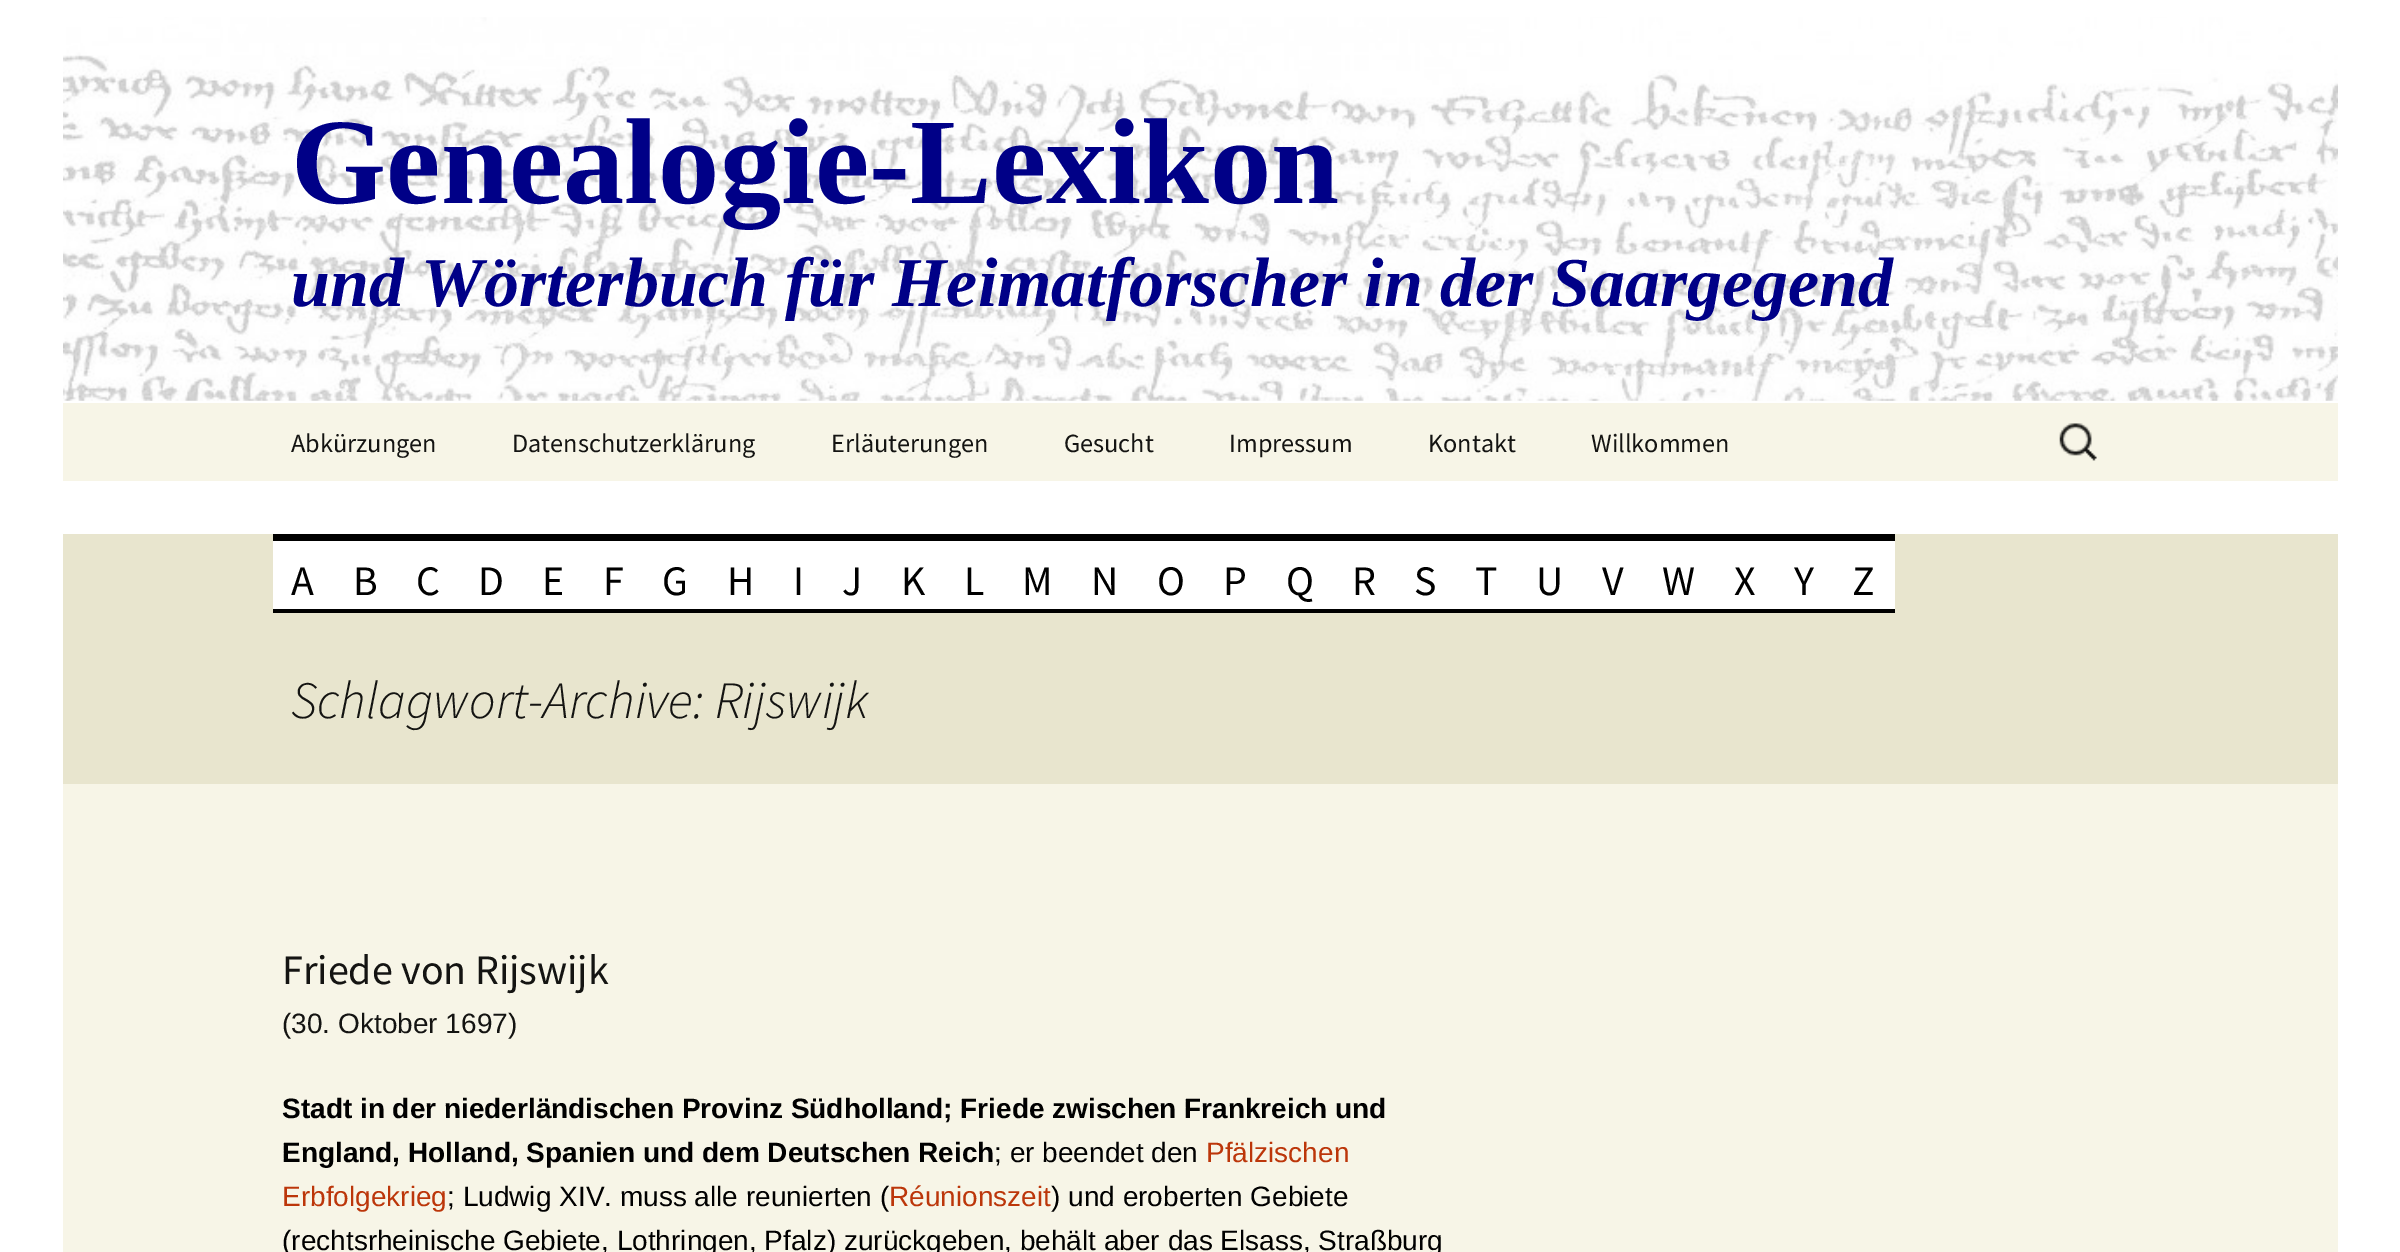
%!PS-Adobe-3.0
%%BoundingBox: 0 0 2400 1252
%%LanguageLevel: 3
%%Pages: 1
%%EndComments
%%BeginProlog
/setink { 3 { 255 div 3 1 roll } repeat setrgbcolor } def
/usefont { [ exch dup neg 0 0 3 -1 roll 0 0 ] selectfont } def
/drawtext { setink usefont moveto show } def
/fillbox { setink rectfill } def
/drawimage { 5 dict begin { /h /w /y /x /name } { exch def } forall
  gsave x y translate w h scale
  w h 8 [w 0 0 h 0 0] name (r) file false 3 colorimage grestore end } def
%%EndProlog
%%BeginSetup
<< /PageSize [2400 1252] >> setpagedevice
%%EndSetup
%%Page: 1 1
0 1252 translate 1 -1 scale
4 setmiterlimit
0 0 2400 1252 255 255 255 fillbox
(assets/img1.rgb) 63 17 2275 384 drawimage
(Genealogie-Lexikon) 291 203 /LiberationSerif-Bold 122.5 0 0 135 drawtext
(und Wörterbuch für Heimatforscher in der Saargegend) 291 306 /LiberationSerif-BoldItalic 70 0 0 135 drawtext
63 403 2275 78 247 245 231 fillbox
(Abkürzungen) 291 452 /SourceSansPro-Regular 26.25 20 20 18 drawtext
(Datenschutzerklärung) 512 452 /SourceSansPro-Regular 26.25 20 20 18 drawtext
(Erläuterungen) 831 452 /SourceSansPro-Regular 26.25 20 20 18 drawtext
(Gesucht) 1064 452 /SourceSansPro-Regular 26.25 20 20 18 drawtext
(Impressum) 1229 452 /SourceSansPro-Regular 26.25 20 20 18 drawtext
(Kontakt) 1428 452 /SourceSansPro-Regular 26.25 20 20 18 drawtext
(Willkommen) 1591 452 /SourceSansPro-Regular 26.25 20 20 18 drawtext
(assets/img2.rgb) 2059 423 38 38 drawimage
63 534 2275 250 232 229 206 fillbox
273 541 1622 68 255 255 255 fillbox
273 534 1622 7 0 0 0 fillbox
273 609 1622 4 0 0 0 fillbox
/SourceSansPro-Regular 42 usefont
291 595 moveto 2 0 (A) ashow
353 595 moveto 2 0 (B) ashow
416 595 moveto 2 0 (C) ashow
478 595 moveto 2 0 (D) ashow
542 595 moveto 2 0 (E) ashow
603 595 moveto 2 0 (F) ashow
662 595 moveto 2 0 (G) ashow
727 595 moveto 2 0 (H) ashow
793 595 moveto 2 0 (I) ashow
842 595 moveto 2 0 (J) ashow
901 595 moveto 2 0 (K) ashow
964 595 moveto 2 0 (L) ashow
1022 595 moveto 2 0 (M) ashow
1091 595 moveto 2 0 (N) ashow
1157 595 moveto 2 0 (O) ashow
1223 595 moveto 2 0 (P) ashow
1286 595 moveto 2 0 (Q) ashow
1352 595 moveto 2 0 (R) ashow
1414 595 moveto 2 0 (S) ashow
1475 595 moveto 2 0 (T) ashow
1536 595 moveto 2 0 (U) ashow
1602 595 moveto 2 0 (V) ashow
1662 595 moveto 2 0 (W) ashow
1734 595 moveto 2 0 (X) ashow
1794 595 moveto 2 0 (Y) ashow
1852 595 moveto 2 0 (Z) ashow
(Schlagwort-Archive: Rijswijk) 291 718 /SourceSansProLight-LightItalic 52.5 20 20 18 drawtext
63 784 2275 468 247 245 231 fillbox
(Friede von Rijswijk) 282 984 /SourceSansPro-Regular 42 20 20 18 drawtext
(\(30. Oktober 1697\)) 282 1033 /LiberationSans-Regular 28 20 20 18 drawtext
(Stadt in der niederländischen Provinz Südholland; Friede zwischen Frankreich und) 282 1118 /LiberationSans-Bold 28 0 0 0 drawtext
(England, Holland, Spanien und dem Deutschen Reich) 282 1162 /LiberationSans-Bold 28 0 0 0 drawtext
(; er beendet den) 994 1162 /LiberationSans-Regular 28 0 0 0 drawtext
(Pfälzischen) 1206 1162 /LiberationSans-Regular 28 188 54 10 drawtext
(Erbfolgekrieg) 282 1206 /LiberationSans-Regular 28 188 54 10 drawtext
(; Ludwig XIV. muss alle reunierten \() 447 1206 /LiberationSans-Regular 28 0 0 0 drawtext
(Réunionszeit) 889 1206 /LiberationSans-Regular 28 188 54 10 drawtext
(\) und eroberten Gebiete) 1051 1206 /LiberationSans-Regular 28 0 0 0 drawtext
(\(rechtsrheinische Gebiete, Lothringen, Pfalz\) zurückgeben, behält aber das Elsass, Straßburg) 282 1250 /LiberationSans-Regular 28 0 0 0 drawtext
showpage
%%EOF
